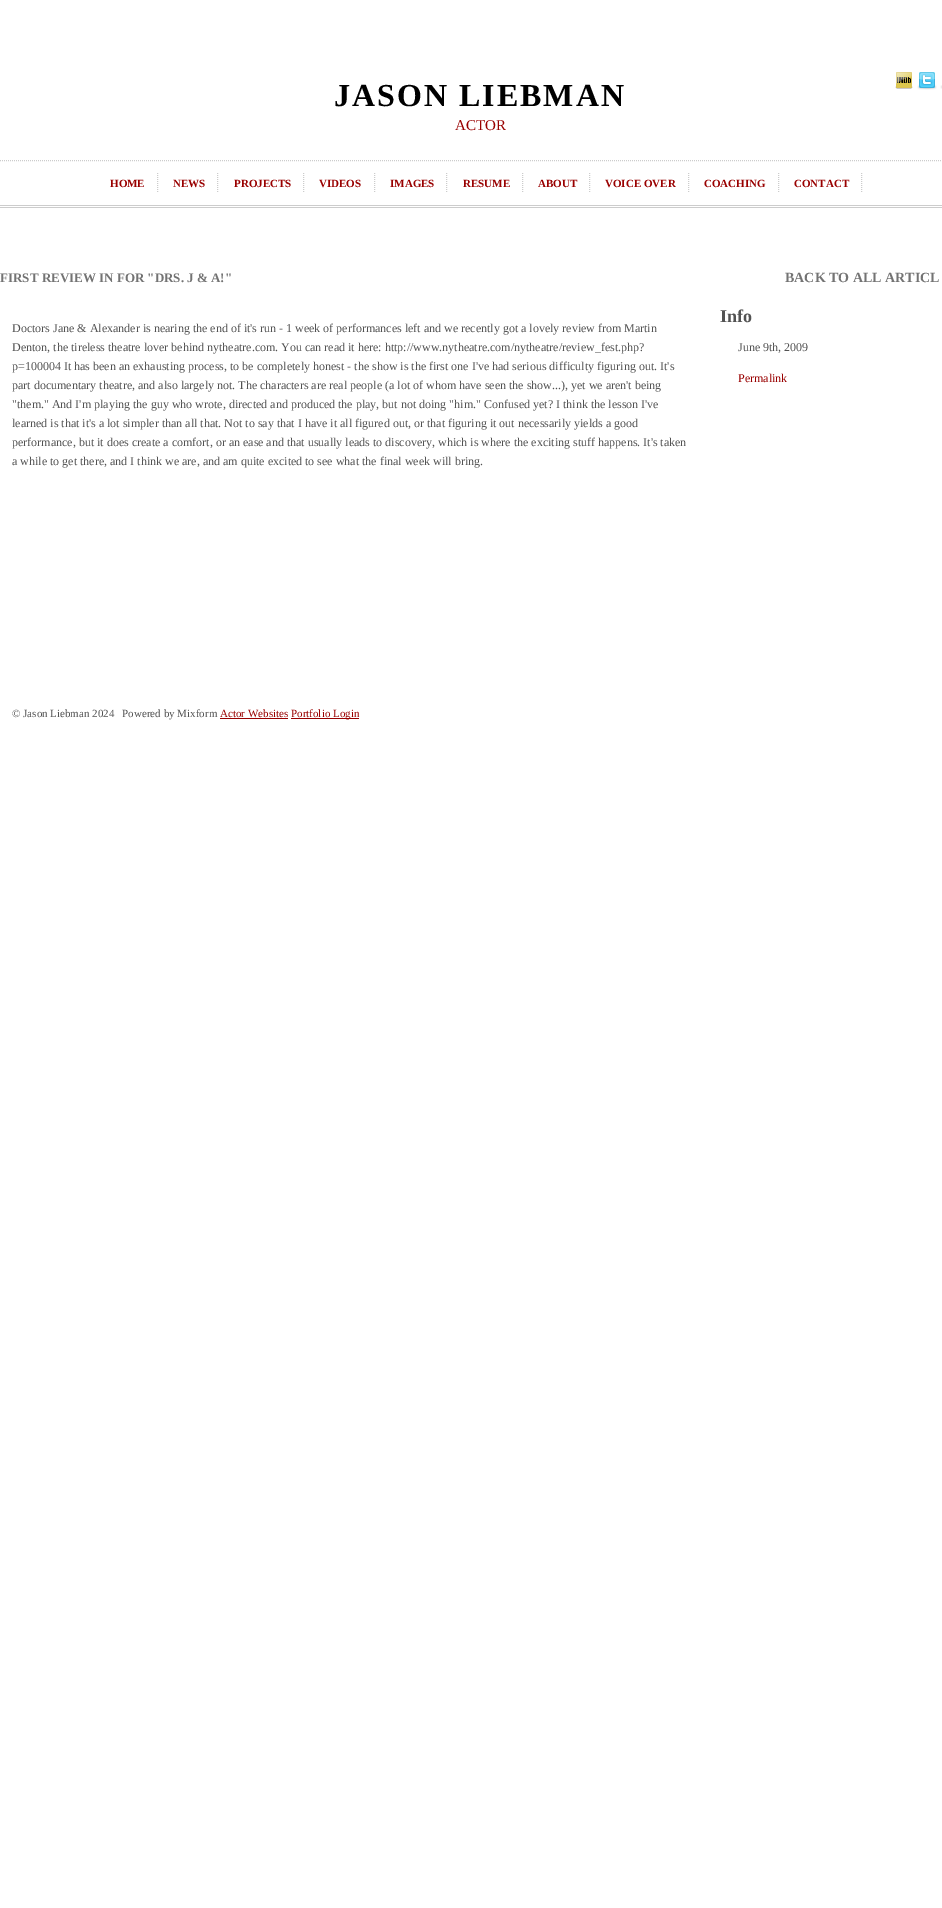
%!PS-Adobe-3.0
%%BoundingBox: 0 0 942 1908
%%LanguageLevel: 3
%%Pages: 1
%%EndComments
%%BeginProlog
/setink { 3 { 255 div 3 1 roll } repeat setrgbcolor } def
/usefont { [ exch dup neg 0 0 3 -1 roll 0 0 ] selectfont } def
/drawtext { setink usefont moveto show } def
/fillbox { setink rectfill } def
/drawimage { 5 dict begin { /h /w /y /x /name } { exch def } forall
  gsave x y translate w h scale
  w h 8 [w 0 0 h 0 0] name (r) file false 3 colorimage grestore end } def
%%EndProlog
%%BeginSetup
<< /PageSize [942 1908] >> setpagedevice
%%EndSetup
%%Page: 1 1
0 1908 translate 1 -1 scale
4 setmiterlimit
0 0 942 1908 255 255 255 fillbox
(assets/img1.rgb) 895 72 18 17 drawimage
(assets/img2.rgb) 917 72 20 18 drawimage
(assets/img3.rgb) 940 85 2 4 drawimage
/LiberationSerif-Bold 32 usefont
0 0 0 setink
334 106 moveto 2 0 (JASON LIEBMAN) ashow
(ACTOR) 455 130 /LiberationSerif-Regular 15 153 0 0 drawtext
204 204 204 setink
[1 1] 0 setdash
0 160.5 moveto 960 160.5 lineto stroke
0 205 942 1 204 204 204 fillbox
0 207 942 1 204 204 204 fillbox
157.5 173 moveto 157.5 193 lineto stroke
(HOME) 110 187 /LiberationSerif-Bold 11 153 0 0 drawtext
204 204 204 setink
217.5 173 moveto 217.5 193 lineto stroke
(NEWS) 173 187 /LiberationSerif-Bold 11 153 0 0 drawtext
204 204 204 setink
303.5 173 moveto 303.5 193 lineto stroke
(PROJECTS) 234 187 /LiberationSerif-Bold 11 153 0 0 drawtext
204 204 204 setink
374.5 173 moveto 374.5 193 lineto stroke
(VIDEOS) 319 187 /LiberationSerif-Bold 11 153 0 0 drawtext
204 204 204 setink
446.5 173 moveto 446.5 193 lineto stroke
(IMAGES) 390 187 /LiberationSerif-Bold 11 153 0 0 drawtext
204 204 204 setink
522.5 173 moveto 522.5 193 lineto stroke
(RESUME) 463 187 /LiberationSerif-Bold 11 153 0 0 drawtext
204 204 204 setink
589.5 173 moveto 589.5 193 lineto stroke
(ABOUT) 538 187 /LiberationSerif-Bold 11 153 0 0 drawtext
204 204 204 setink
688.5 173 moveto 688.5 193 lineto stroke
(VOICE OVER) 605 187 /LiberationSerif-Bold 11 153 0 0 drawtext
204 204 204 setink
778.5 173 moveto 778.5 193 lineto stroke
(COACHING) 704 187 /LiberationSerif-Bold 11 153 0 0 drawtext
204 204 204 setink
861.5 173 moveto 861.5 193 lineto stroke
(CONTACT) 794 187 /LiberationSerif-Bold 11 153 0 0 drawtext
(FIRST REVIEW IN FOR "DRS. J & A!") 0 282 /LiberationSerif-Bold 13 115 115 115 drawtext
(BACK TO ALL ARTICL) 785 282 /LiberationSerif-Bold 14 115 115 115 drawtext
(Doctors Jane & Alexander is nearing the end of it's run - 1 week of performances left and we recently got a lovely review from Martin) 12 332 /LiberationSerif-Regular 12 82 82 82 drawtext
(Denton, the tireless theatre lover behind nytheatre.com. You can read it here: http://www.nytheatre.com/nytheatre/review_fest.php?) 12 351 /LiberationSerif-Regular 12 82 82 82 drawtext
(p=100004 It has been an exhausting process, to be completely honest - the show is the first one I've had serious difficulty figuring out. It's) 12 370 /LiberationSerif-Regular 12 82 82 82 drawtext
(part documentary theatre, and also largely not. The characters are real people \(a lot of whom have seen the show...\), yet we aren't being) 12 389 /LiberationSerif-Regular 12 82 82 82 drawtext
("them." And I'm playing the guy who wrote, directed and produced the play, but not doing "him." Confused yet? I think the lesson I've) 12 408 /LiberationSerif-Regular 12 82 82 82 drawtext
(learned is that it's a lot simpler than all that. Not to say that I have it all figured out, or that figuring it out necessarily yields a good) 12 427 /LiberationSerif-Regular 12 82 82 82 drawtext
(performance, but it does create a comfort, or an ease and that usually leads to discovery, which is where the exciting stuff happens. It's taken) 12 446 /LiberationSerif-Regular 12 82 82 82 drawtext
(a while to get there, and I think we are, and am quite excited to see what the final week will bring.) 12 465 /LiberationSerif-Regular 12 82 82 82 drawtext
(Info) 720 322 /LiberationSerif-Bold 18 82 82 82 drawtext
(June 9th, 2009) 738 351 /LiberationSerif-Regular 12 82 82 82 drawtext
(Permalink) 738 382 /LiberationSerif-Regular 12 153 0 0 drawtext
(© Jason Liebman 2024   Powered by Mixform) 12 717 /LiberationSerif-Regular 11 82 82 82 drawtext
(Actor Websites) 220 717 /LiberationSerif-Regular 11 153 0 0 drawtext
220 718 68 1 153 0 0 fillbox
291 718 68 1 153 0 0 fillbox
(Portfolio Login) 291 717 /LiberationSerif-Regular 11 153 0 0 drawtext
showpage
%%EOF
